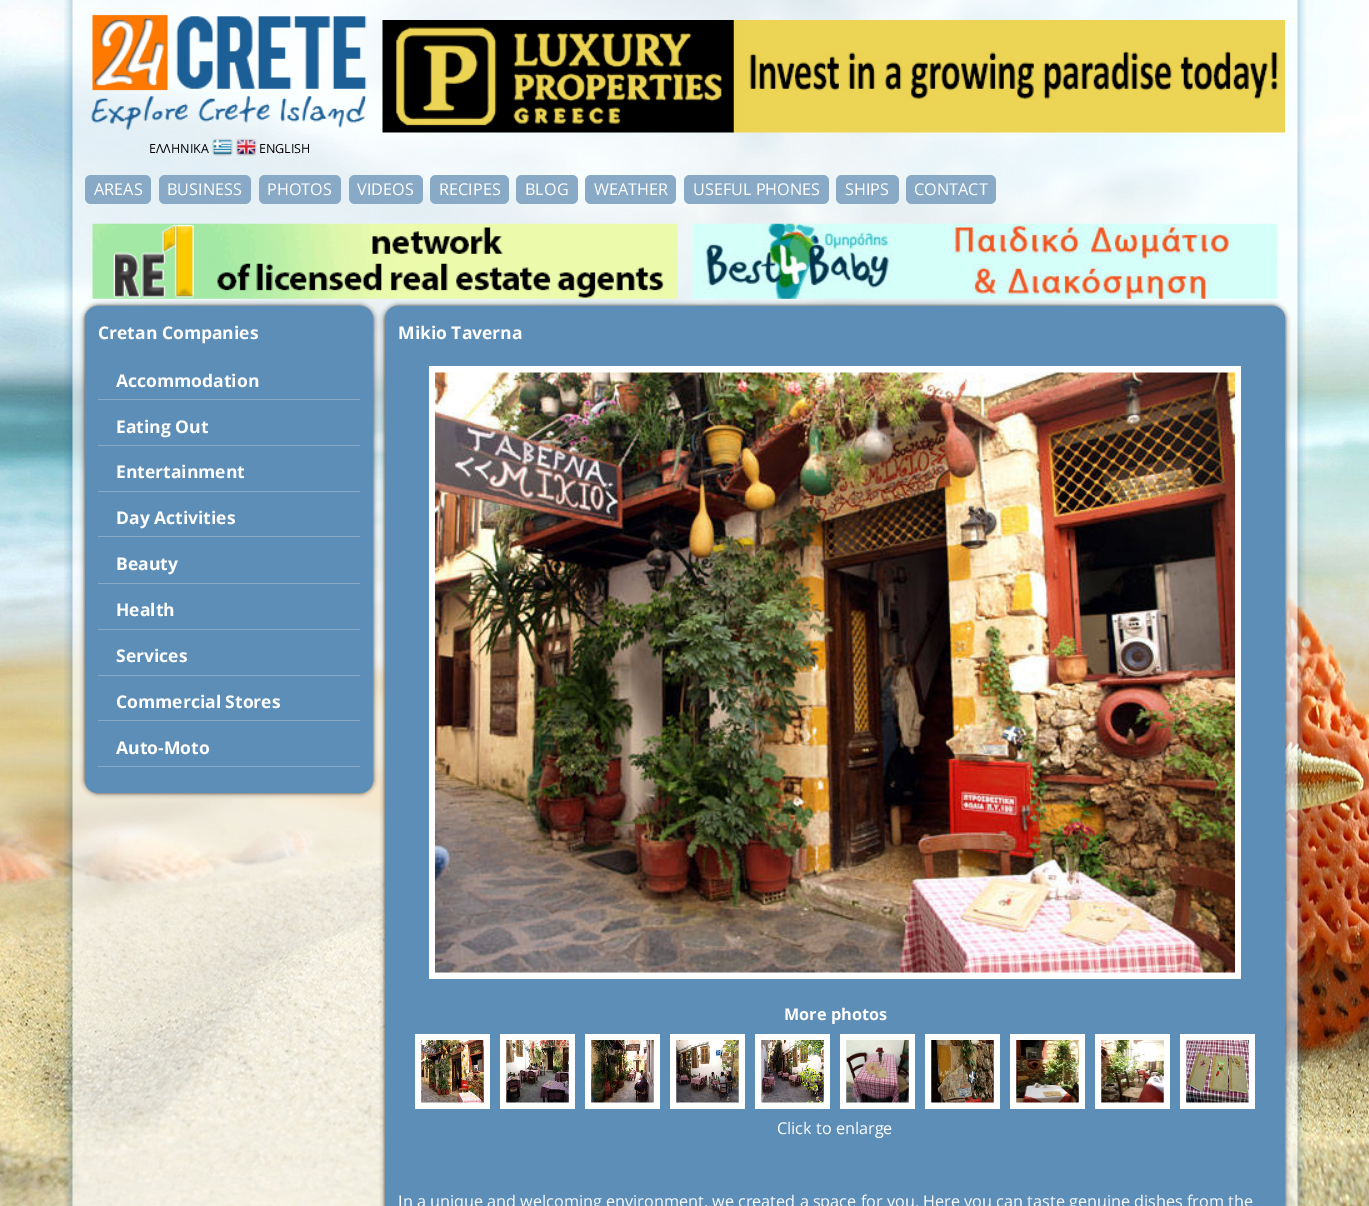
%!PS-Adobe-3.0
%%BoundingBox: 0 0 1369 1206
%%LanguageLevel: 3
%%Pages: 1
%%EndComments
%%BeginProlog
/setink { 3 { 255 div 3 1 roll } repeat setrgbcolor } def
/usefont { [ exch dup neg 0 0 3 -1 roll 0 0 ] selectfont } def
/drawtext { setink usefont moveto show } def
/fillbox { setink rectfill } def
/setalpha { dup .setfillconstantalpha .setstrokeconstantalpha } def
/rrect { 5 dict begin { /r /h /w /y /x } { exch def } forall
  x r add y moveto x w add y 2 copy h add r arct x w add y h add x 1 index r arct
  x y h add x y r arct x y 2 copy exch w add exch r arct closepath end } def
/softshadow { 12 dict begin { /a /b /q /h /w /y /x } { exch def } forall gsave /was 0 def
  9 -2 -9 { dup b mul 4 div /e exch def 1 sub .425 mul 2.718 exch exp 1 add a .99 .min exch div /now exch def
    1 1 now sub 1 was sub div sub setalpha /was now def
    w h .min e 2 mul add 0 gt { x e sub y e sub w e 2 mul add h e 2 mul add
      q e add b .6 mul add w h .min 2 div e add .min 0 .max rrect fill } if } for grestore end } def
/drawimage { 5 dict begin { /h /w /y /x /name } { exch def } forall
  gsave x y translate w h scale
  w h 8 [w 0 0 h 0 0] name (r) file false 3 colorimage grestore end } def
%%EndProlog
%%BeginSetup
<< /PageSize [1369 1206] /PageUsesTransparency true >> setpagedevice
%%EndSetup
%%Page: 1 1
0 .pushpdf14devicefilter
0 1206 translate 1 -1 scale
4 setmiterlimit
0 0 1369 1206 255 255 255 fillbox
(assets/img1.rgb) 0 0 1369 1206 drawimage
(assets/img2.rgb) 64 0 1242 1206 drawimage
(assets/img3.rgb) 382 20 903 113 drawimage
(assets/img4.rgb) 91 14 276 117 drawimage
(ΕΛΛΗΝΙΚΑ) 149 153 /OpenSans-Regular 12.5 0 0 0 drawtext
(assets/img5.rgb) 212 138 21 18 drawimage
(assets/img6.rgb) 236 138 21 18 drawimage
(ENGLISH) 259 153 /OpenSans-Regular 12.5 0 0 0 drawtext
136 170 198 setink
85 175 66 29 6 rrect fill
(AREAS) 94 195 /OpenSans-Regular 16.25 255 255 255 drawtext
136 170 198 setink
159 175 92 29 6 rrect fill
(BUSINESS) 167 195 /OpenSans-Regular 16.25 255 255 255 drawtext
136 170 198 setink
259 175 82 29 6 rrect fill
(PHOTOS) 267 195 /OpenSans-Regular 16.25 255 255 255 drawtext
136 170 198 setink
349 175 74 29 6 rrect fill
(VIDEOS) 357 195 /OpenSans-Regular 16.25 255 255 255 drawtext
136 170 198 setink
430 175 79 29 6 rrect fill
(RECIPES) 439 195 /OpenSans-Regular 16.25 255 255 255 drawtext
136 170 198 setink
516 175 62 29 6 rrect fill
(BLOG) 525 195 /OpenSans-Regular 16.25 255 255 255 drawtext
136 170 198 setink
585 175 91 29 6 rrect fill
(WEATHER) 594 195 /OpenSans-Regular 16.25 255 255 255 drawtext
136 170 198 setink
684 175 145 29 6 rrect fill
(USEFUL PHONES) 693 195 /OpenSans-Regular 16.25 255 255 255 drawtext
136 170 198 setink
836 175 63 29 6 rrect fill
(SHIPS) 845 195 /OpenSans-Regular 16.25 255 255 255 drawtext
136 170 198 setink
906 175 90 29 6 rrect fill
(CONTACT) 914 195 /OpenSans-Regular 16.25 255 255 255 drawtext
(assets/img7.rgb) 92 223 586 76 drawimage
(assets/img8.rgb) 692 223 586 76 drawimage
51 51 51 setink
85 306 288 487 13 2.5 1 softshadow
93 142 183 setink
85 306 288 487 13 rrect fill
(Cretan Companies) 98 339 /OpenSans-Bold 17.5 255 255 255 drawtext
98 399 262 1 136 170 198 fillbox
(Accommodation) 116 387 /OpenSans-Bold 17.5 255 255 255 drawtext
98 445 262 1 136 170 198 fillbox
(Εating Out) 116 433 /OpenSans-Bold 17.5 255 255 255 drawtext
98 491 262 1 136 170 198 fillbox
(Entertainment) 116 478 /OpenSans-Bold 17.5 255 255 255 drawtext
98 536 262 1 136 170 198 fillbox
(Day Activities) 116 524 /OpenSans-Bold 17.5 255 255 255 drawtext
98 583 262 1 136 170 198 fillbox
(Beauty) 116 570 /OpenSans-Bold 17.5 255 255 255 drawtext
98 629 262 1 136 170 198 fillbox
(Health) 116 616 /OpenSans-Bold 17.5 255 255 255 drawtext
98 675 262 1 136 170 198 fillbox
(Services) 116 662 /OpenSans-Bold 17.5 255 255 255 drawtext
98 720 262 1 136 170 198 fillbox
(Commercial Stores) 116 708 /OpenSans-Bold 17.5 255 255 255 drawtext
98 766 262 1 136 170 198 fillbox
(Auto-Moto) 116 754 /OpenSans-Bold 17.5 255 255 255 drawtext
51 51 51 setink
385 306 900 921 13 2.5 1 softshadow
93 142 183 setink
385 306 900 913 13 rrect fill
(Mikio Taverna) 398 339 /OpenSans-Bold 17.5 255 255 255 drawtext
429 366 812 613 255 255 255 fillbox
(assets/img9.rgb) 435 372 800 601 drawimage
(More photos) 784 1020 /OpenSans-Bold 16.25 255 255 255 drawtext
415 1034 75 75 255 255 255 fillbox
500 1034 75 75 255 255 255 fillbox
585 1034 75 75 255 255 255 fillbox
670 1034 75 75 255 255 255 fillbox
755 1034 75 75 255 255 255 fillbox
840 1034 75 75 255 255 255 fillbox
925 1034 75 75 255 255 255 fillbox
1010 1034 75 75 255 255 255 fillbox
1095 1034 75 75 255 255 255 fillbox
1180 1034 75 75 255 255 255 fillbox
(assets/img10.rgb) 421 1040 63 63 drawimage
(assets/img11.rgb) 506 1040 63 63 drawimage
(assets/img12.rgb) 591 1040 63 63 drawimage
(assets/img13.rgb) 676 1040 63 63 drawimage
(assets/img14.rgb) 761 1040 63 63 drawimage
(assets/img15.rgb) 846 1040 63 63 drawimage
(assets/img16.rgb) 931 1040 63 63 drawimage
(assets/img17.rgb) 1016 1040 63 63 drawimage
(assets/img18.rgb) 1101 1040 63 63 drawimage
(assets/img19.rgb) 1186 1040 63 63 drawimage
(Click to enlarge) 777 1134 /OpenSans-Regular 16.25 255 255 255 drawtext
(In a unique and welcoming environment, we created a space for you. Here you can taste genuine dishes from the) 398 1207 /OpenSans-Regular 16.25 255 255 255 drawtext
.poppdf14devicefilter showpage
%%EOF
